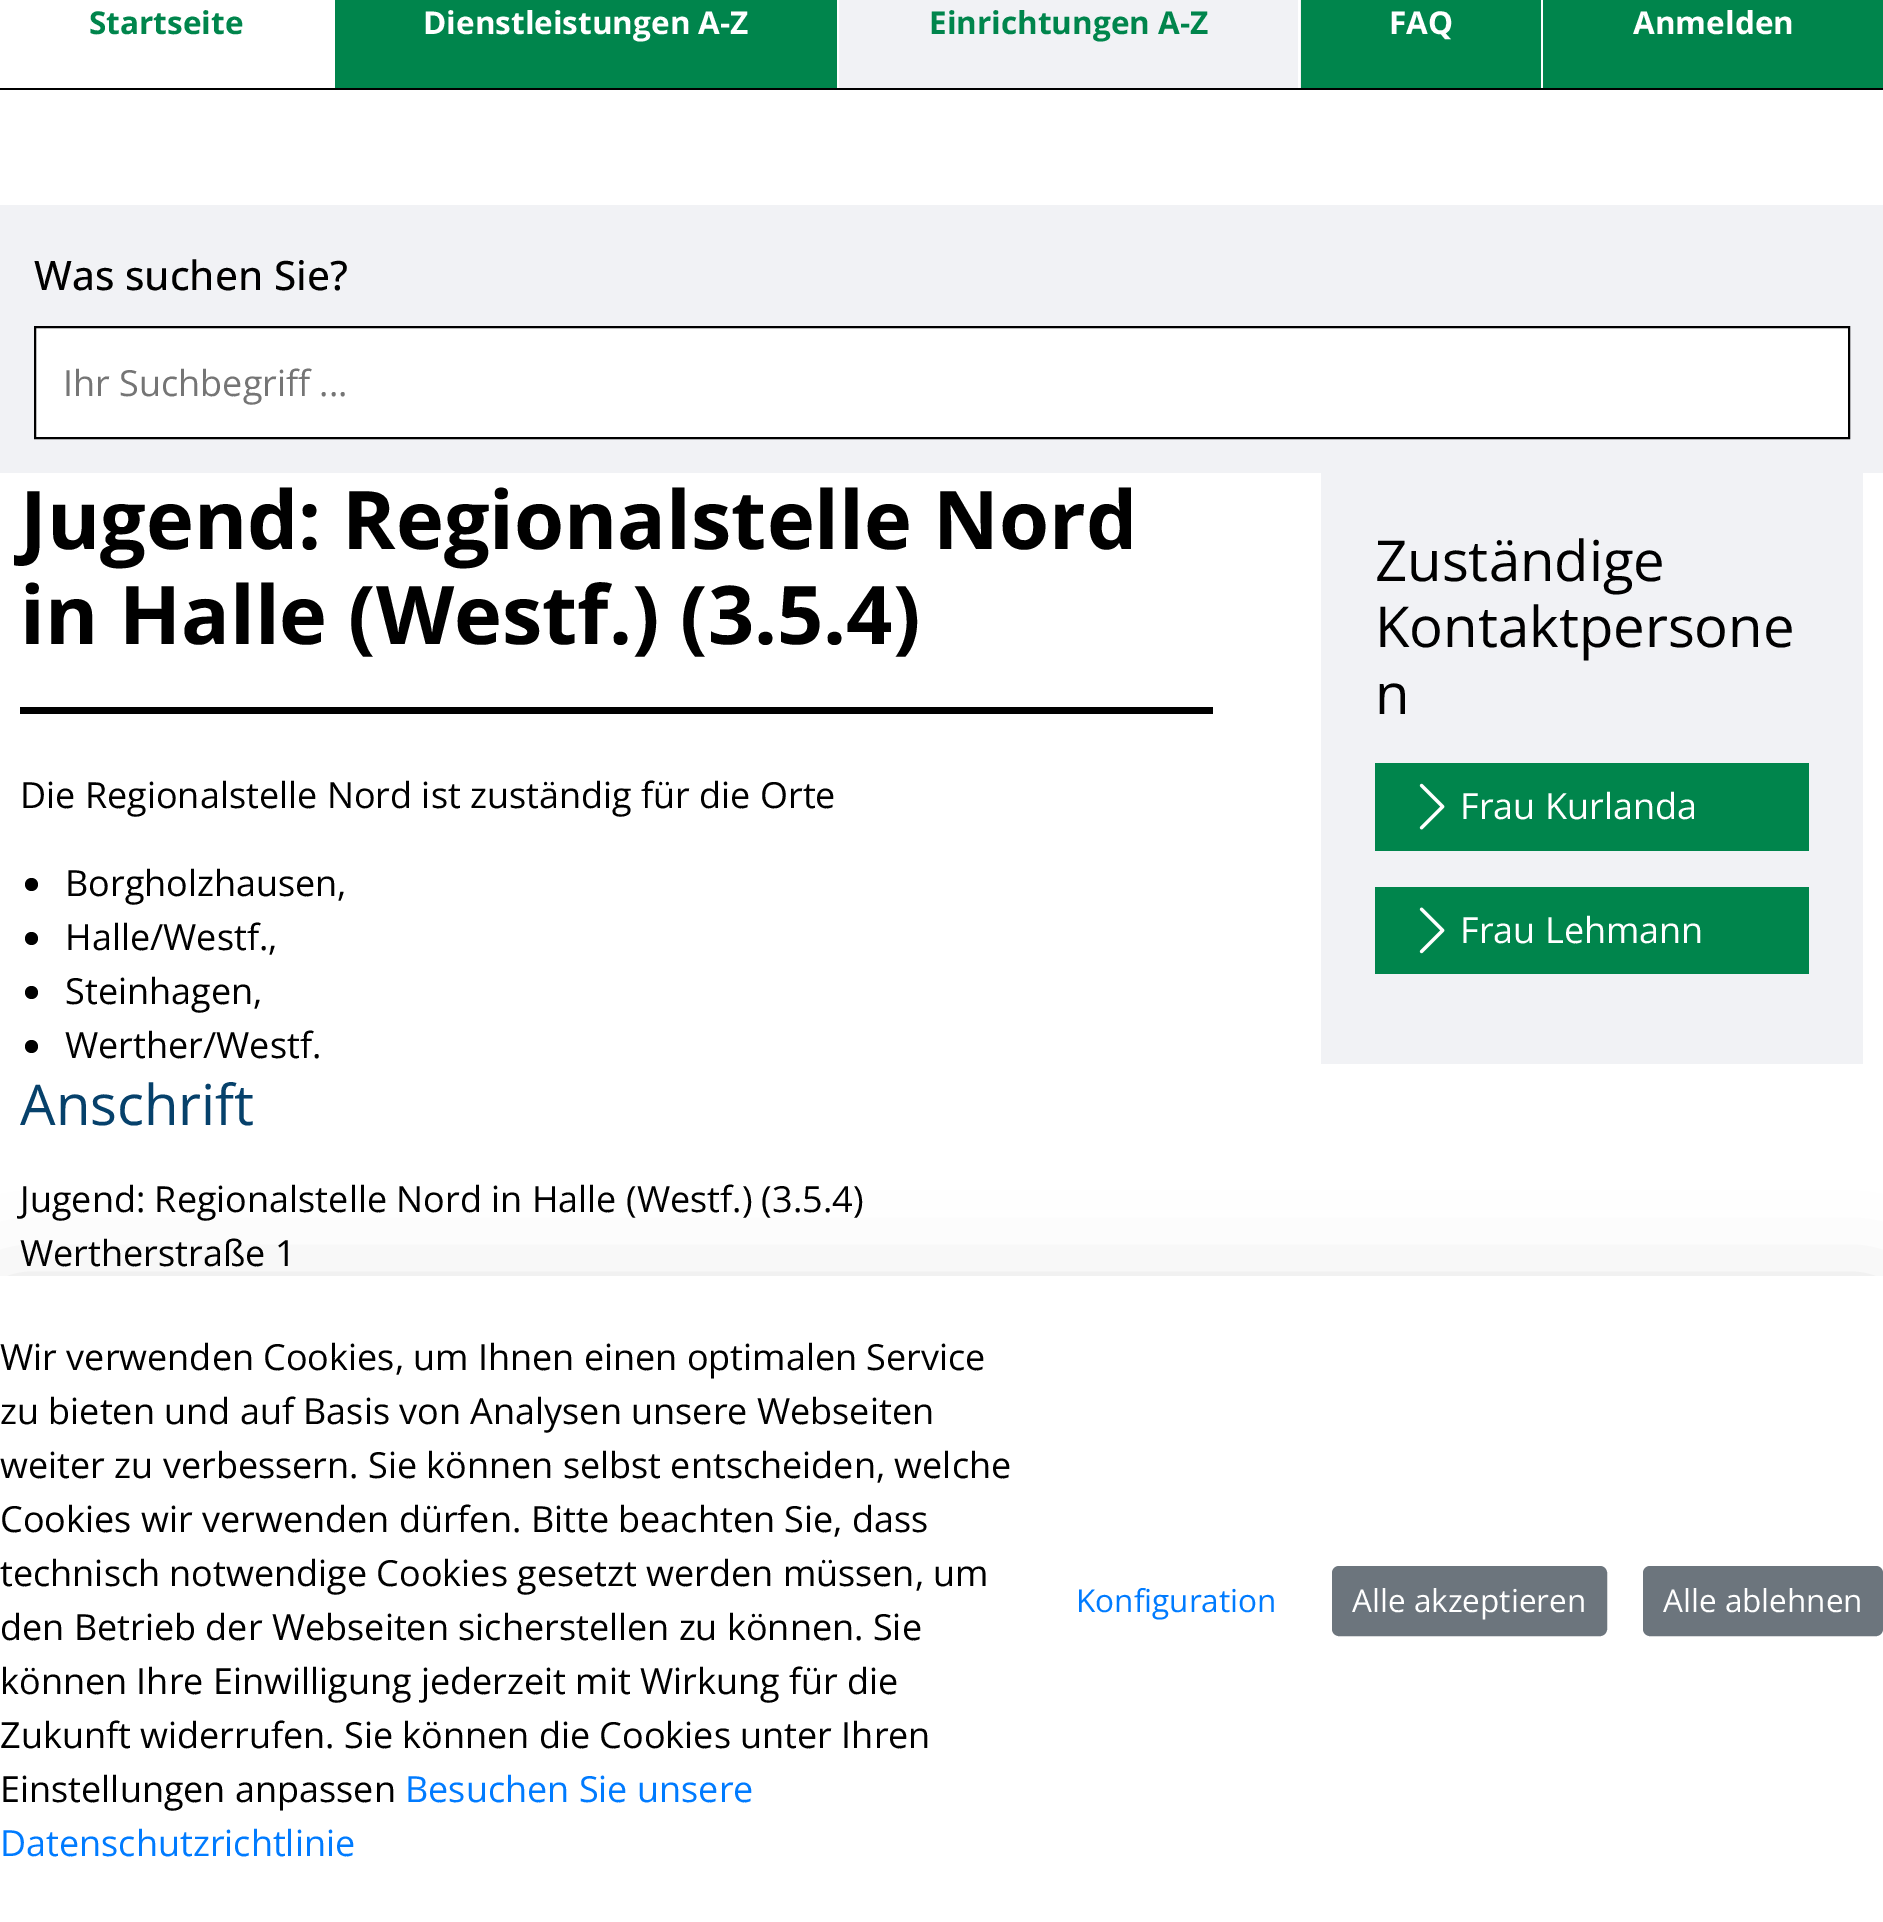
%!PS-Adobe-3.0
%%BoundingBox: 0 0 1883 1922
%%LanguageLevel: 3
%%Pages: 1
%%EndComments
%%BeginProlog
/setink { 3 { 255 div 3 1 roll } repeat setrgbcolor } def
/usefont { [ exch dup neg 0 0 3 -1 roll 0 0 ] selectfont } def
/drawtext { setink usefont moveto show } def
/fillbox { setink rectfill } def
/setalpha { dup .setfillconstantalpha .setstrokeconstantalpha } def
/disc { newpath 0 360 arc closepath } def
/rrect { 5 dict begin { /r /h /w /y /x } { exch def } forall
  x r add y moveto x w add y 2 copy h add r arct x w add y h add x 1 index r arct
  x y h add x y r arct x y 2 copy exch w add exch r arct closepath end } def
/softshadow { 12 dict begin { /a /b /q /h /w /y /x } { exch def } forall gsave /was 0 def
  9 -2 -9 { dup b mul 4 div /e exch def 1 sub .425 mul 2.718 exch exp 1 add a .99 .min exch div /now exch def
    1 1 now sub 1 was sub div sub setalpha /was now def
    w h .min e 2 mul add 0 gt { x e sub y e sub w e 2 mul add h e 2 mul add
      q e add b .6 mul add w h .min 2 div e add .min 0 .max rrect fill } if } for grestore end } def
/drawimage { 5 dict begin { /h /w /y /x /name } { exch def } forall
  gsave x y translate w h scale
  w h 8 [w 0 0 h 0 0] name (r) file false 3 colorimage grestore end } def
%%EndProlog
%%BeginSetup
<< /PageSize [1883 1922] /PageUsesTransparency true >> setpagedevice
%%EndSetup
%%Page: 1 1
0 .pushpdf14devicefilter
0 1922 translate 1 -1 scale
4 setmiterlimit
0 0 1883 1922 255 255 255 fillbox
335 0 1548 88 0 133 76 fillbox
0 88 1883 2 0 0 0 fillbox
(Startseite) 89 34 /OpenSans-Bold 31.5 0 133 76 drawtext
837 0 2 88 255 255 255 fillbox
(Dienstleistungen A-Z) 423 34 /OpenSans-Bold 31.5 255 255 255 drawtext
839 0 462 88 241 242 245 fillbox
1298 0 2 88 255 255 255 fillbox
(Einrichtungen A-Z) 929 34 /OpenSans-Bold 31.5 0 133 76 drawtext
1541 0 2 88 255 255 255 fillbox
(FAQ) 1389 34 /OpenSans-Bold 31.5 255 255 255 drawtext
(Anmelden) 1633 34 /OpenSans-Bold 31.5 255 255 255 drawtext
0 205 1883 268 241 242 245 fillbox
(Was suchen Sie?) 34 290 /OpenSans-Medium 40.5 0 0 0 drawtext
255 255 255 setink
35 327 moveto 1849 327 lineto 1849 438 lineto 35 438 lineto closepath gsave fill grestore
0 0 0 setink
2 setlinewidth
stroke
(Ihr Suchbegriff ...) 63 396 /OpenSans-Regular 36 117 117 117 drawtext
20 707 1193 7 0 0 0 fillbox
(Jugend: Regionalstelle Nord) 20 549 /OpenSans-Bold 81 0 0 0 drawtext
(in Halle \(Westf.\) \(3.5.4\)) 20 644 /OpenSans-Bold 81 0 0 0 drawtext
(Die Regionalstelle Nord ist zuständig für die Orte) 20 808 /OpenSans-Regular 36 0 0 0 drawtext
31.5 884.5 6.5 disc fill
(Borgholzhausen,) 65 896 /OpenSans-Regular 36 0 0 0 drawtext
31.5 938.5 6.5 disc fill
(Halle/Westf.,) 65 950 /OpenSans-Regular 36 0 0 0 drawtext
31.5 992.5 6.5 disc fill
(Steinhagen,) 65 1004 /OpenSans-Regular 36 0 0 0 drawtext
31.5 1046.5 6.5 disc fill
(Werther/Westf.) 65 1058 /OpenSans-Regular 36 0 0 0 drawtext
(Anschrift) 20 1125 /OpenSans-Regular 56.25 6 65 107 drawtext
(Jugend: Regionalstelle Nord in Halle \(Westf.\) \(3.5.4\)) 20 1212 /OpenSans-Regular 36 0 0 0 drawtext
(Wertherstraße 1) 20 1266 /OpenSans-Regular 36 0 0 0 drawtext
1321 473 542 591 241 242 245 fillbox
(Zuständige) 1375 581 /OpenSans-Regular 56.25 0 0 0 drawtext
(Kontaktpersone) 1375 647 /OpenSans-Regular 56.25 0 0 0 drawtext
(n) 1375 714 /OpenSans-Regular 56.25 0 0 0 drawtext
1375 763 434 88 0 133 76 fillbox
(assets/img1.rgb) 1419 783 26 47 drawimage
(Frau Kurlanda) 1460 819 /OpenSans-Regular 36 255 255 255 drawtext
1375 887 434 87 0 133 76 fillbox
(assets/img2.rgb) 1419 907 26 47 drawimage
(Frau Lehmann) 1460 943 /OpenSans-Regular 36 255 255 255 drawtext
0 0 0 setink
0 1312 1883 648 0 54 0.18 softshadow
0 1276 1883 646 255 255 255 fillbox
(Wir verwenden Cookies, um Ihnen einen optimalen Service) 0 1370 /OpenSans-Regular 36 0 0 0 drawtext
(zu bieten und auf Basis von Analysen unsere Webseiten) 0 1424 /OpenSans-Regular 36 0 0 0 drawtext
(weiter zu verbessern. Sie können selbst entscheiden, welche) 0 1478 /OpenSans-Regular 36 0 0 0 drawtext
(Cookies wir verwenden dürfen. Bitte beachten Sie, dass) 0 1532 /OpenSans-Regular 36 0 0 0 drawtext
(technisch notwendige Cookies gesetzt werden müssen, um) 0 1586 /OpenSans-Regular 36 0 0 0 drawtext
(den Betrieb der Webseiten sicherstellen zu können. Sie) 0 1640 /OpenSans-Regular 36 0 0 0 drawtext
(können Ihre Einwilligung jederzeit mit Wirkung für die) 0 1694 /OpenSans-Regular 36 0 0 0 drawtext
(Zukunft widerrufen. Sie können die Cookies unter Ihren) 0 1748 /OpenSans-Regular 36 0 0 0 drawtext
(Einstellungen anpassen) 0 1802 /OpenSans-Regular 36 0 0 0 drawtext
(Besuchen Sie unsere) 405 1802 /OpenSans-Regular 36 0 123 255 drawtext
(Datenschutzrichtlinie) 0 1856 /OpenSans-Regular 36 0 123 255 drawtext
(Konfiguration) 1076 1612 /OpenSans-Regular 31.5 0 123 255 drawtext
108 117 125 setink
1333 1567 273 68 6 rrect gsave fill grestore
stroke
(Alle akzeptieren) 1352 1612 /OpenSans-Regular 31.5 255 255 255 drawtext
108 117 125 setink
1644 1567 238 68 6 rrect gsave fill grestore
stroke
(Alle ablehnen) 1663 1612 /OpenSans-Regular 31.5 255 255 255 drawtext
.poppdf14devicefilter showpage
%%EOF
